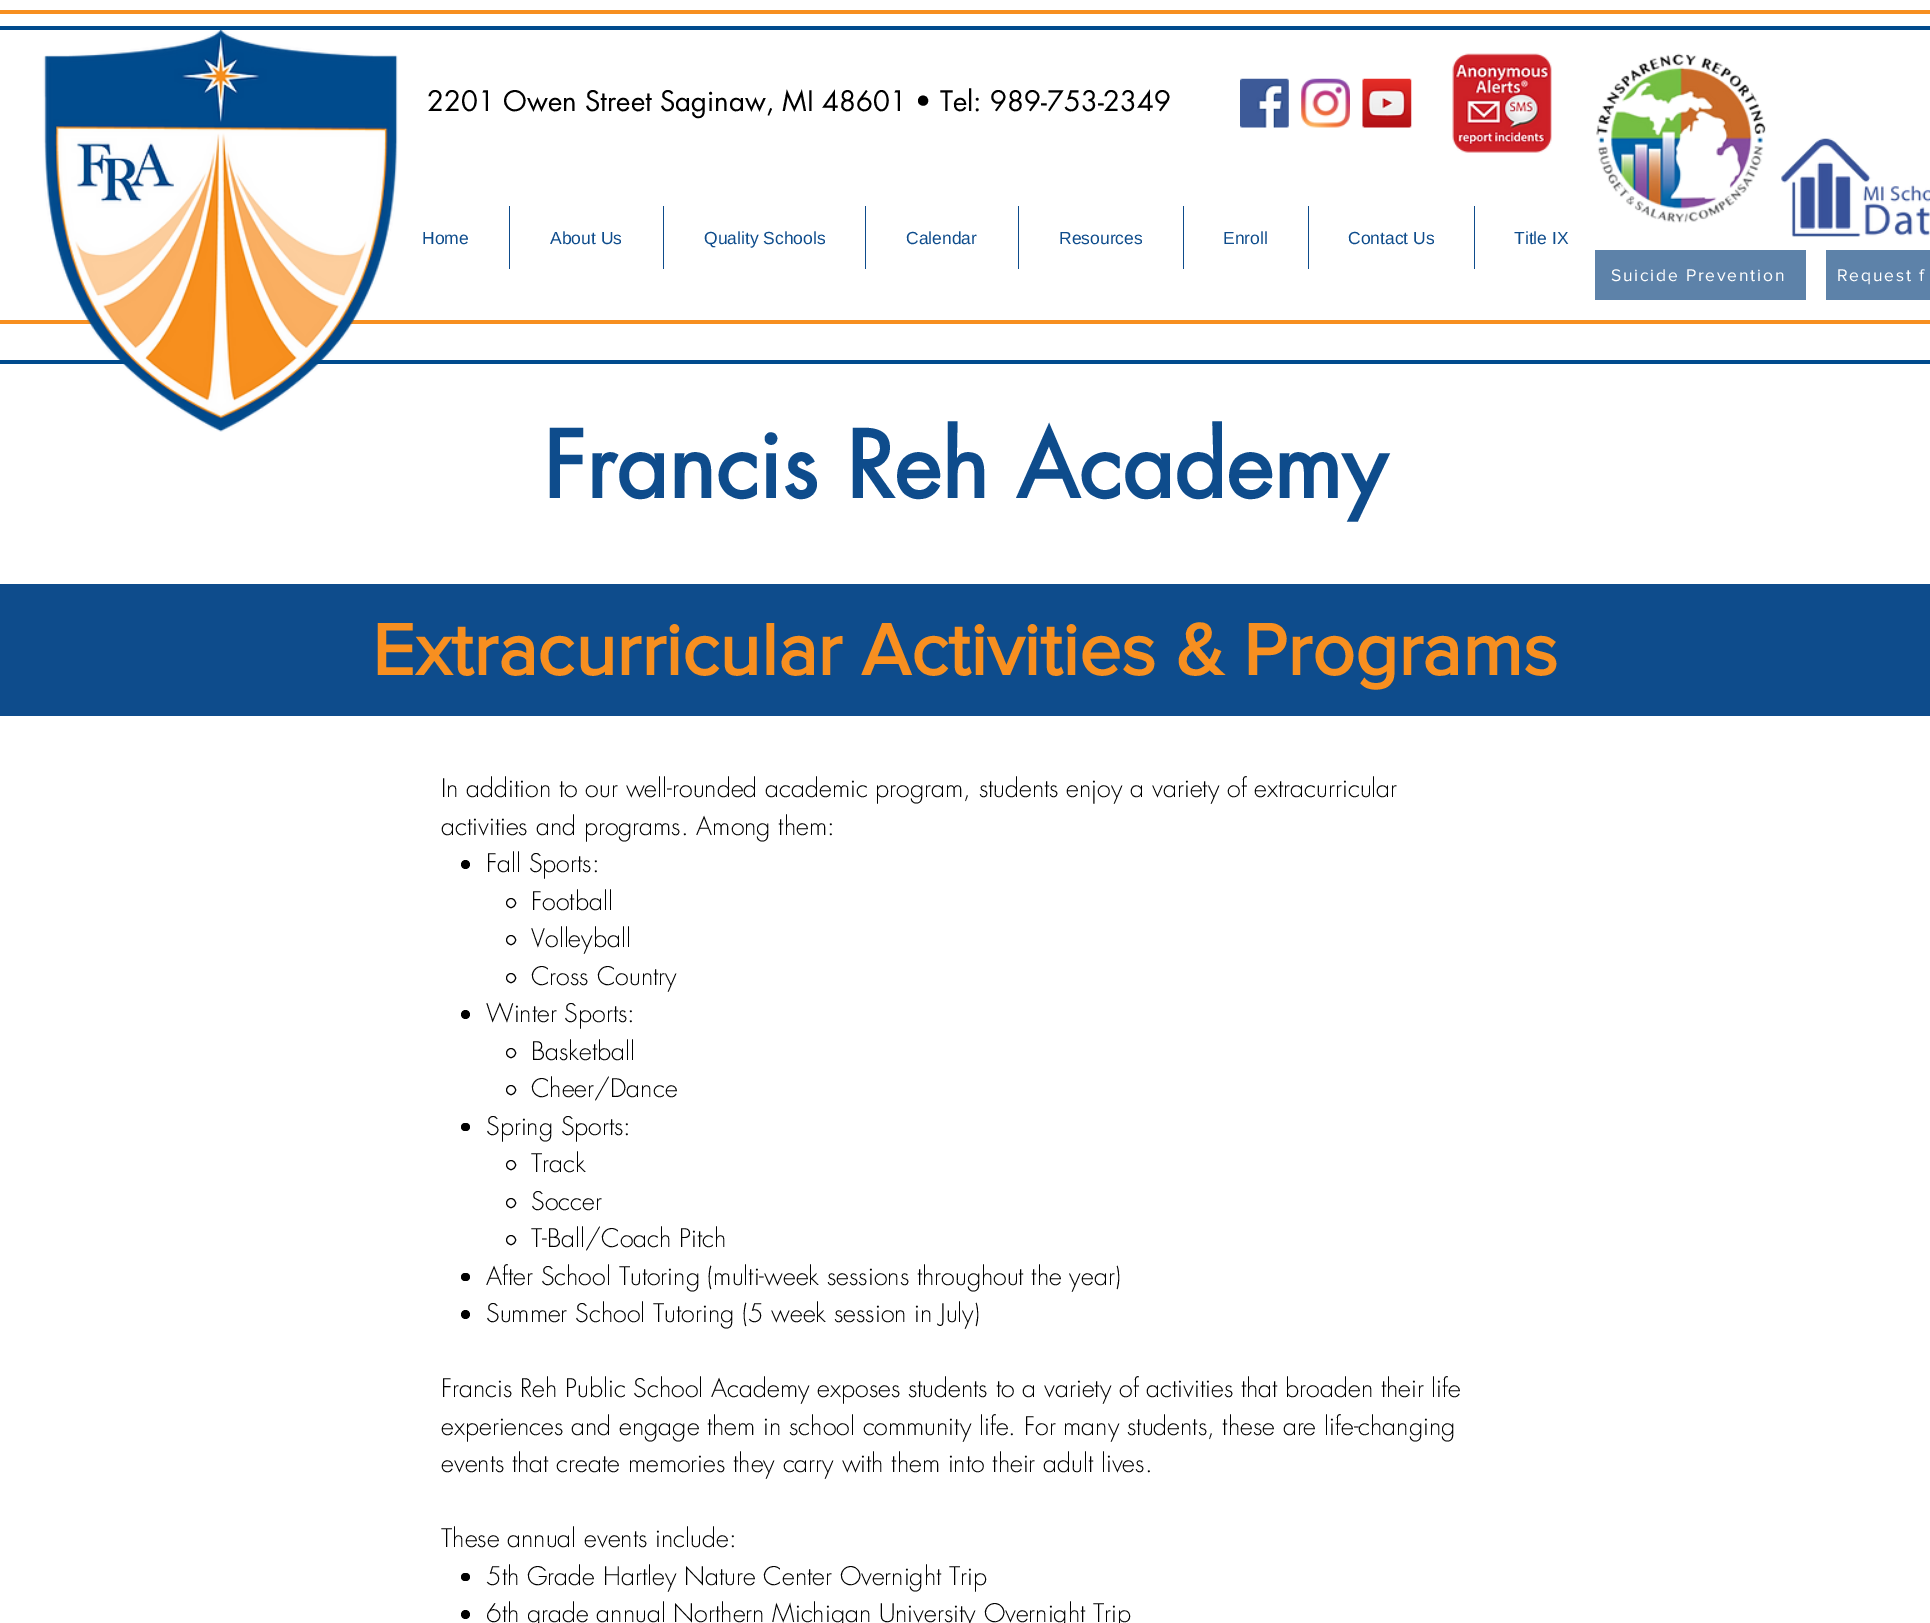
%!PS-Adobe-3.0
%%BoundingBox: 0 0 1930 1623
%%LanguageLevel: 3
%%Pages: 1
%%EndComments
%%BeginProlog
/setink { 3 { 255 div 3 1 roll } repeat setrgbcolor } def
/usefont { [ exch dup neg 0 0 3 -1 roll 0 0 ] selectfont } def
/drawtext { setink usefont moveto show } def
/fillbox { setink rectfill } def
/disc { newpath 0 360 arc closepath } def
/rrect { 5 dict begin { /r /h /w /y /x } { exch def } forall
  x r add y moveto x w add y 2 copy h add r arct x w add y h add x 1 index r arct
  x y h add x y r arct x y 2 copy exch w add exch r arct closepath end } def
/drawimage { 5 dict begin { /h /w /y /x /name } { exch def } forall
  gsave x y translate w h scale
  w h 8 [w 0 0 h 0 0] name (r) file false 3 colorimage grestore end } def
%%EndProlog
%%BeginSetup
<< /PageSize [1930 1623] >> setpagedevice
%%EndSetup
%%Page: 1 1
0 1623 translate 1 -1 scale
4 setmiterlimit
0 0 1930 1623 255 255 255 fillbox
0 10 1930 4 247 143 32 fillbox
0 26 1930 4 0 75 141 fillbox
0 320 1930 4 247 143 32 fillbox
0 360 1930 4 0 75 141 fillbox
(assets/img1.rgb) 43 30 355 402 drawimage
(2201 Owen Street Saginaw, MI 48601 • Tel: 989-753-2349) 427 111 /futura-Regular 27.5 0 0 0 drawtext
(assets/img2.rgb) 1240 78 49 50 drawimage
(assets/img3.rgb) 1301 78 49 50 drawimage
(assets/img4.rgb) 1362 78 50 50 drawimage
(assets/img5.rgb) 1452 53 100 100 drawimage
(assets/img6.rgb) 1596 53 170 170 drawimage
(assets/img7.rgb) 1781 138 149 99 drawimage
(Home) 422 244 /LiberationSans-Regular 17.5 14 76 140 drawtext
509 206 1 63 14 76 140 fillbox
(About Us) 550 244 /LiberationSans-Regular 17.5 14 76 140 drawtext
663 206 1 63 14 76 140 fillbox
(Quality Schools) 704 244 /LiberationSans-Regular 17.5 14 76 140 drawtext
865 206 1 63 14 76 140 fillbox
(Calendar) 906 244 /LiberationSans-Regular 17.5 14 76 140 drawtext
1018 206 1 63 14 76 140 fillbox
(Resources) 1059 244 /LiberationSans-Regular 17.5 14 76 140 drawtext
1183 206 1 63 14 76 140 fillbox
(Enroll) 1223 244 /LiberationSans-Regular 17.5 14 76 140 drawtext
1308 206 1 63 14 76 140 fillbox
(Contact Us) 1348 244 /LiberationSans-Regular 17.5 14 76 140 drawtext
1474 206 1 63 14 76 140 fillbox
(Title IX) 1514 244 /LiberationSans-Regular 17.5 14 76 140 drawtext
1595 250 211 50 93 130 169 fillbox
/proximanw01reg-Regular 17.5 usefont
255 255 255 setink
1611 281 moveto 1.75 0 (Suicide Prevention) ashow
1826 250 104 50 93 130 169 fillbox
255 255 255 setink
1837 281 moveto 1.75 0 (Request f) ashow
(Francis Reh Academy) 543 498 /futura-Bold 90 14 76 140 drawtext
0 584 1930 132 14 76 140 fillbox
(Extracurricular Activities & Programs) 372 675 /proximanw01reg-Bold 75 247 143 32 drawtext
(In addition to our well-rounded academic program, students enjoy a variety of extracurricular) 441 797 /futura-Light 25 0 0 0 drawtext
(activities and programs. Among them:) 441 835 /futura-Light 25 0 0 0 drawtext
465.5 864.5 4.5 disc fill
(Fall Sports:) 486 872 /futura-Light 25 0 0 0 drawtext
511 903 4.5 disc stroke
(Football) 531 910 /futura-Light 25 0 0 0 drawtext
511 940 4.5 disc stroke
(Volleyball) 531 947 /futura-Light 25 0 0 0 drawtext
511 978 4.5 disc stroke
(Cross Country) 531 985 /futura-Light 25 0 0 0 drawtext
465.5 1014.5 4.5 disc fill
(Winter Sports:) 486 1022 /futura-Light 25 0 0 0 drawtext
511 1053 4.5 disc stroke
(Basketball) 531 1060 /futura-Light 25 0 0 0 drawtext
511 1090 4.5 disc stroke
(Cheer/Dance) 531 1097 /futura-Light 25 0 0 0 drawtext
461 1123 9 8 4 rrect fill
(Spring Sports:) 486 1135 /futura-Light 25 0 0 0 drawtext
511 1165 4.5 disc stroke
(Track) 531 1172 /futura-Light 25 0 0 0 drawtext
511 1203 4.5 disc stroke
(Soccer) 531 1210 /futura-Light 25 0 0 0 drawtext
511 1240 4.5 disc stroke
(T-Ball/Coach Pitch) 531 1247 /futura-Light 25 0 0 0 drawtext
461 1273 9 8 4 rrect fill
(After School Tutoring \(multi-week sessions throughout the year\)) 486 1285 /futura-Light 25 0 0 0 drawtext
465.5 1314.5 4.5 disc fill
(Summer School Tutoring \(5 week session in July\)) 486 1322 /futura-Light 25 0 0 0 drawtext
(Francis Reh Public School Academy exposes students to a variety of activities that broaden their life) 441 1397 /futura-Light 25 0 0 0 drawtext
(experiences and engage them in school community life. For many students, these are life-changing) 441 1435 /futura-Light 25 0 0 0 drawtext
(events that create memories they carry with them into their adult lives.) 441 1472 /futura-Light 25 0 0 0 drawtext
(These annual events include:) 441 1547 /futura-Light 25 0 0 0 drawtext
461 1573 9 8 4 rrect fill
(5th Grade Hartley Nature Center Overnight Trip) 486 1585 /futura-Light 25 0 0 0 drawtext
465.5 1614.5 4.5 disc fill
(6th grade annual Northern Michigan University Overnight Trip) 486 1622 /futura-Light 25 0 0 0 drawtext
showpage
%%EOF
